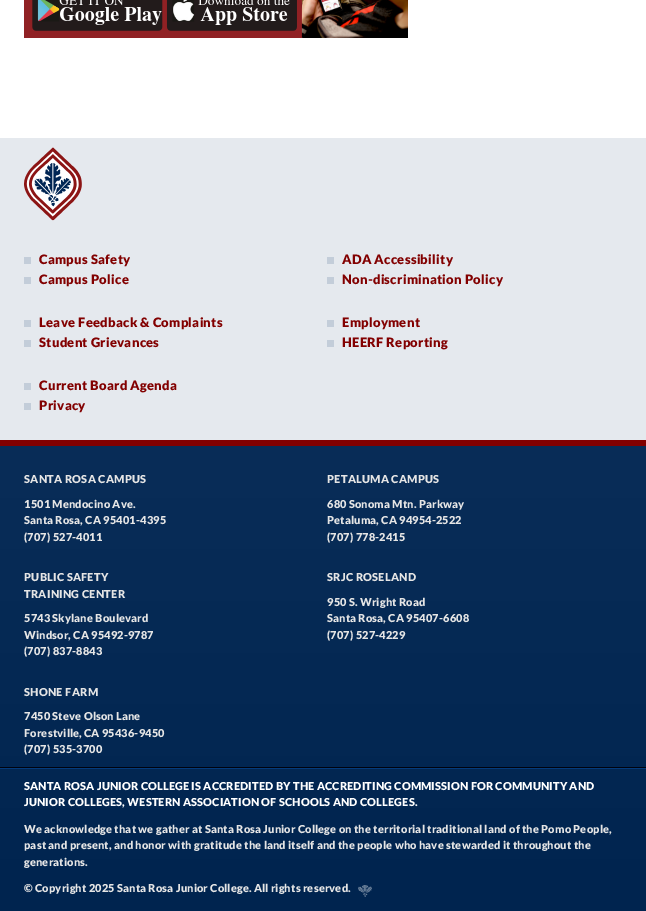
%!PS-Adobe-3.0
%%BoundingBox: 0 0 646 911
%%LanguageLevel: 3
%%Pages: 1
%%EndComments
%%BeginProlog
/setink { 3 { 255 div 3 1 roll } repeat setrgbcolor } def
/usefont { [ exch dup neg 0 0 3 -1 roll 0 0 ] selectfont } def
/fillbox { setink rectfill } def
/drawimage { 5 dict begin { /h /w /y /x /name } { exch def } forall
  gsave x y translate w h scale
  w h 8 [w 0 0 h 0 0] name (r) file false 3 colorimage grestore end } def
%%EndProlog
%%BeginSetup
<< /PageSize [646 911] >> setpagedevice
%%EndSetup
%%Page: 1 1
0 911 translate 1 -1 scale
4 setmiterlimit
0 0 646 911 255 255 255 fillbox
(assets/img1.rgb) 24 0 384 38 drawimage
gsave 0 446 moveto 646 446 lineto 646 911 lineto 0 911 lineto closepath clip newpath
<< /ShadingType 2 /ColorSpace /DeviceRGB /Coords [323 138 323 911] /Extend [true true] /Function << /FunctionType 2 /Domain [0 1] /C0 [0.059 0.2 0.369] /C1 [0 0.141 0.31] /N 1 >> >> shfill grestore
0 138 646 302 229 233 238 fillbox
0 440 646 6 130 0 0 fillbox
(assets/img2.rgb) 24 147 58 74 drawimage
/Lato-Black 13 usefont
39 264 moveto 0.25 0 (Campus Safety) ashow
24 257 7 7 195 205 217 fillbox
130 0 0 setink
39 284 moveto 0.25 0 (Campus Police) ashow
24 277 7 7 195 205 217 fillbox
130 0 0 setink
342 264 moveto 0.25 0 (ADA Accessibility) ashow
327 257 7 7 195 205 217 fillbox
130 0 0 setink
342 284 moveto 0.25 0 (Non-discrimination Policy) ashow
327 277 7 7 195 205 217 fillbox
130 0 0 setink
39 327 moveto 0.25 0 (Leave Feedback & Complaints) ashow
24 320 7 7 195 205 217 fillbox
130 0 0 setink
39 347 moveto 0.25 0 (Student Grievances) ashow
24 340 7 7 195 205 217 fillbox
130 0 0 setink
342 327 moveto 0.25 0 (Employment) ashow
327 320 7 7 195 205 217 fillbox
130 0 0 setink
342 347 moveto 0.25 0 (HEERF Reporting) ashow
327 340 7 7 195 205 217 fillbox
130 0 0 setink
39 390 moveto 0.25 0 (Current Board Agenda) ashow
24 383 7 7 195 205 217 fillbox
130 0 0 setink
39 410 moveto 0.25 0 (Privacy) ashow
24 403 7 7 195 205 217 fillbox
0 767 646 1 0 3 15 fillbox
/Lato-Black 11 usefont
229 229 229 setink
24 483 moveto 0.25 0 (SANTA ROSA CAMPUS) ashow
24 508 moveto 0.13 0 (1501 Mendocino Ave.) ashow
24 524 moveto 0.13 0 (Santa Rosa, CA 95401-4395) ashow
24 541 moveto 0.13 0 (\(707\) 527-4011) ashow
327 483 moveto 0.25 0 (PETALUMA CAMPUS) ashow
327 508 moveto 0.13 0 (680 Sonoma Mtn. Parkway) ashow
327 524 moveto 0.13 0 (Petaluma, CA 94954-2522) ashow
327 541 moveto 0.13 0 (\(707\) 778-2415) ashow
24 581 moveto 0.25 0 (PUBLIC SAFETY) ashow
24 598 moveto 0.25 0 (TRAINING CENTER) ashow
24 622 moveto 0.13 0 (5743 Skylane Boulevard) ashow
24 639 moveto 0.13 0 (Windsor, CA 95492-9787) ashow
24 655 moveto 0.13 0 (\(707\) 837-8843) ashow
327 581 moveto 0.25 0 (SRJC ROSELAND) ashow
327 606 moveto 0.13 0 (950 S. Wright Road) ashow
327 622 moveto 0.13 0 (Santa Rosa, CA 95407-6608) ashow
327 639 moveto 0.13 0 (\(707\) 527-4229) ashow
24 696 moveto 0.25 0 (SHONE FARM) ashow
24 720 moveto 0.13 0 (7450 Steve Olson Lane) ashow
24 737 moveto 0.13 0 (Forestville, CA 95436-9450) ashow
24 753 moveto 0.13 0 (\(707\) 535-3700) ashow
0 768 646 1 4 59 124 fillbox
255 255 255 setink
24 790 moveto 0.13 0 (SANTA ROSA JUNIOR COLLEGE IS ACCREDITED BY THE ACCREDITING COMMISSION FOR COMMUNITY AND) ashow
24 806 moveto 0.13 0 (JUNIOR COLLEGES, WESTERN ASSOCIATION OF SCHOOLS AND COLLEGES.) ashow
229 229 229 setink
24 833 moveto 0.13 0 (We acknowledge that we gather at Santa Rosa Junior College on the territorial traditional land of the Pomo People,) ashow
24 849 moveto 0.13 0 (past and present, and honor with gratitude the land itself and the people who have stewarded it throughout the) ashow
24 866 moveto 0.13 0 (generations.) ashow
24 892 moveto 0.13 0 (© Copyright 2025 Santa Rosa Junior College. All rights reserved.) ashow
(assets/img3.rgb) 358 885 14 12 drawimage
showpage
%%EOF
